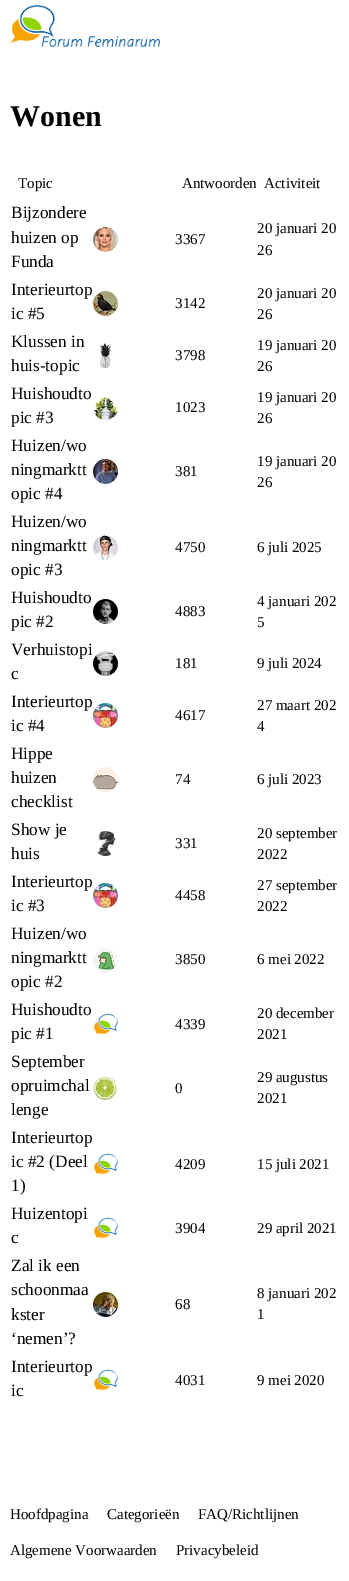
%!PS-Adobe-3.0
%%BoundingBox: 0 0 349 1581
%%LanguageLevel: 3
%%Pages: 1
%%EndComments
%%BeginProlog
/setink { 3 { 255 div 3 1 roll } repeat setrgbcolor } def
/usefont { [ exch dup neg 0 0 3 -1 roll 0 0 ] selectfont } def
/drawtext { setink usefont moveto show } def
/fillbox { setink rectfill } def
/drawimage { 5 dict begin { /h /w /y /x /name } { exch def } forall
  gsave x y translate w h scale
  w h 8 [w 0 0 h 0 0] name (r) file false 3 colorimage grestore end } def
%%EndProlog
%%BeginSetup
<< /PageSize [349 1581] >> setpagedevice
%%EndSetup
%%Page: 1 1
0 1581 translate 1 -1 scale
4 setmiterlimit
0 0 349 1581 255 255 255 fillbox
(assets/img1.rgb) 10 5 150 42 drawimage
(Wonen) 10 126 /LiberationSerif-Bold 30 0 0 0 drawtext
(Topic) 18 188 /LiberationSerif-Regular 15 0 0 0 drawtext
(Antwoorden) 182 188 /LiberationSerif-Regular 15 0 0 0 drawtext
(Activiteit) 264 188 /LiberationSerif-Regular 15 0 0 0 drawtext
(Bijzondere) 11 218 /LiberationSerif-Regular 17.25 0 0 0 drawtext
(huizen op) 11 243 /LiberationSerif-Regular 17.25 0 0 0 drawtext
(Funda) 11 267 /LiberationSerif-Regular 17.25 0 0 0 drawtext
(assets/img2.rgb) 93 227 25 25 drawimage
(3367) 175 244 /LiberationSerif-Regular 15 0 0 0 drawtext
(20 januari 20) 257 233 /LiberationSerif-Regular 15 0 0 0 drawtext
(26) 257 255 /LiberationSerif-Regular 15 0 0 0 drawtext
(Interieurtop) 11 295 /LiberationSerif-Regular 17.25 0 0 0 drawtext
(ic #5) 11 319 /LiberationSerif-Regular 17.25 0 0 0 drawtext
(assets/img3.rgb) 93 291 25 25 drawimage
(3142) 175 308 /LiberationSerif-Regular 15 0 0 0 drawtext
(20 januari 20) 257 298 /LiberationSerif-Regular 15 0 0 0 drawtext
(26) 257 319 /LiberationSerif-Regular 15 0 0 0 drawtext
(Klussen in) 11 347 /LiberationSerif-Regular 17.25 0 0 0 drawtext
(huis-topic) 11 371 /LiberationSerif-Regular 17.25 0 0 0 drawtext
(assets/img4.rgb) 100 343 11 25 drawimage
(3798) 175 360 /LiberationSerif-Regular 15 0 0 0 drawtext
(19 januari 20) 257 350 /LiberationSerif-Regular 15 0 0 0 drawtext
(26) 257 371 /LiberationSerif-Regular 15 0 0 0 drawtext
(Huishoudto) 11 399 /LiberationSerif-Regular 17.25 0 0 0 drawtext
(pic #3) 11 423 /LiberationSerif-Regular 17.25 0 0 0 drawtext
(assets/img5.rgb) 94 396 24 24 drawimage
(1023) 175 412 /LiberationSerif-Regular 15 0 0 0 drawtext
(19 januari 20) 257 402 /LiberationSerif-Regular 15 0 0 0 drawtext
(26) 257 423 /LiberationSerif-Regular 15 0 0 0 drawtext
(Huizen/wo) 11 451 /LiberationSerif-Regular 17.25 0 0 0 drawtext
(ningmarktt) 11 475 /LiberationSerif-Regular 17.25 0 0 0 drawtext
(opic #4) 11 499 /LiberationSerif-Regular 17.25 0 0 0 drawtext
(assets/img6.rgb) 93 459 25 25 drawimage
(381) 175 476 /LiberationSerif-Regular 15 0 0 0 drawtext
(19 januari 20) 257 466 /LiberationSerif-Regular 15 0 0 0 drawtext
(26) 257 487 /LiberationSerif-Regular 15 0 0 0 drawtext
(Huizen/wo) 11 527 /LiberationSerif-Regular 17.25 0 0 0 drawtext
(ningmarktt) 11 551 /LiberationSerif-Regular 17.25 0 0 0 drawtext
(opic #3) 11 575 /LiberationSerif-Regular 17.25 0 0 0 drawtext
(assets/img7.rgb) 93 535 25 25 drawimage
(4750) 175 552 /LiberationSerif-Regular 15 0 0 0 drawtext
(6 juli 2025) 257 552 /LiberationSerif-Regular 15 0 0 0 drawtext
(Huishoudto) 11 603 /LiberationSerif-Regular 17.25 0 0 0 drawtext
(pic #2) 11 627 /LiberationSerif-Regular 17.25 0 0 0 drawtext
(assets/img8.rgb) 93 599 25 25 drawimage
(4883) 175 616 /LiberationSerif-Regular 15 0 0 0 drawtext
(4 januari 202) 257 606 /LiberationSerif-Regular 15 0 0 0 drawtext
(5) 257 627 /LiberationSerif-Regular 15 0 0 0 drawtext
(Verhuistopi) 11 655 /LiberationSerif-Regular 17.25 0 0 0 drawtext
(c) 11 679 /LiberationSerif-Regular 17.25 0 0 0 drawtext
(assets/img9.rgb) 93 651 25 25 drawimage
(181) 175 668 /LiberationSerif-Regular 15 0 0 0 drawtext
(9 juli 2024) 257 668 /LiberationSerif-Regular 15 0 0 0 drawtext
(Interieurtop) 11 707 /LiberationSerif-Regular 17.25 0 0 0 drawtext
(ic #4) 11 731 /LiberationSerif-Regular 17.25 0 0 0 drawtext
(assets/img10.rgb) 93 703 25 25 drawimage
(4617) 175 720 /LiberationSerif-Regular 15 0 0 0 drawtext
(27 maart 202) 257 710 /LiberationSerif-Regular 15 0 0 0 drawtext
(4) 257 731 /LiberationSerif-Regular 15 0 0 0 drawtext
(Hippe) 11 759 /LiberationSerif-Regular 17.25 0 0 0 drawtext
(huizen) 11 783 /LiberationSerif-Regular 17.25 0 0 0 drawtext
(checklist) 11 807 /LiberationSerif-Regular 17.25 0 0 0 drawtext
(assets/img11.rgb) 93 767 25 25 drawimage
(74) 175 784 /LiberationSerif-Regular 15 0 0 0 drawtext
(6 juli 2023) 257 784 /LiberationSerif-Regular 15 0 0 0 drawtext
(Show je) 11 835 /LiberationSerif-Regular 17.25 0 0 0 drawtext
(huis) 11 859 /LiberationSerif-Regular 17.25 0 0 0 drawtext
(assets/img12.rgb) 97 831 19 25 drawimage
(331) 175 848 /LiberationSerif-Regular 15 0 0 0 drawtext
(20 september) 257 838 /LiberationSerif-Regular 15 0 0 0 drawtext
(2022) 257 859 /LiberationSerif-Regular 15 0 0 0 drawtext
(Interieurtop) 11 887 /LiberationSerif-Regular 17.25 0 0 0 drawtext
(ic #3) 11 911 /LiberationSerif-Regular 17.25 0 0 0 drawtext
(assets/img10.rgb) 93 883 25 25 drawimage
(4458) 175 900 /LiberationSerif-Regular 15 0 0 0 drawtext
(27 september) 257 890 /LiberationSerif-Regular 15 0 0 0 drawtext
(2022) 257 911 /LiberationSerif-Regular 15 0 0 0 drawtext
(Huizen/wo) 11 939 /LiberationSerif-Regular 17.25 0 0 0 drawtext
(ningmarktt) 11 963 /LiberationSerif-Regular 17.25 0 0 0 drawtext
(opic #2) 11 987 /LiberationSerif-Regular 17.25 0 0 0 drawtext
(assets/img13.rgb) 93 948 25 25 drawimage
(3850) 175 964 /LiberationSerif-Regular 15 0 0 0 drawtext
(6 mei 2022) 257 964 /LiberationSerif-Regular 15 0 0 0 drawtext
(Huishoudto) 11 1015 /LiberationSerif-Regular 17.25 0 0 0 drawtext
(pic #1) 11 1039 /LiberationSerif-Regular 17.25 0 0 0 drawtext
(assets/img14.rgb) 94 1013 24 22 drawimage
(4339) 175 1029 /LiberationSerif-Regular 15 0 0 0 drawtext
(20 december) 257 1018 /LiberationSerif-Regular 15 0 0 0 drawtext
(2021) 257 1039 /LiberationSerif-Regular 15 0 0 0 drawtext
(September) 11 1067 /LiberationSerif-Regular 17.25 0 0 0 drawtext
(opruimchal) 11 1091 /LiberationSerif-Regular 17.25 0 0 0 drawtext
(lenge) 11 1115 /LiberationSerif-Regular 17.25 0 0 0 drawtext
(assets/img15.rgb) 93 1076 25 25 drawimage
(0) 175 1093 /LiberationSerif-Regular 15 0 0 0 drawtext
(29 augustus) 257 1082 /LiberationSerif-Regular 15 0 0 0 drawtext
(2021) 257 1103 /LiberationSerif-Regular 15 0 0 0 drawtext
(Interieurtop) 11 1143 /LiberationSerif-Regular 17.25 0 0 0 drawtext
(ic #2 \(Deel) 11 1167 /LiberationSerif-Regular 17.25 0 0 0 drawtext
(1\)) 11 1191 /LiberationSerif-Regular 17.25 0 0 0 drawtext
(assets/img14.rgb) 94 1153 24 22 drawimage
(4209) 175 1169 /LiberationSerif-Regular 15 0 0 0 drawtext
(15 juli 2021) 257 1169 /LiberationSerif-Regular 15 0 0 0 drawtext
(Huizentopi) 11 1219 /LiberationSerif-Regular 17.25 0 0 0 drawtext
(c) 11 1243 /LiberationSerif-Regular 17.25 0 0 0 drawtext
(assets/img14.rgb) 94 1217 24 22 drawimage
(3904) 175 1233 /LiberationSerif-Regular 15 0 0 0 drawtext
(29 april 2021) 257 1233 /LiberationSerif-Regular 15 0 0 0 drawtext
(Zal ik een) 11 1271 /LiberationSerif-Regular 17.25 0 0 0 drawtext
(schoonmaa) 11 1295 /LiberationSerif-Regular 17.25 0 0 0 drawtext
(kster) 11 1320 /LiberationSerif-Regular 17.25 0 0 0 drawtext
(‘nemen’?) 11 1344 /LiberationSerif-Regular 17.25 0 0 0 drawtext
(assets/img16.rgb) 93 1292 25 25 drawimage
(68) 175 1309 /LiberationSerif-Regular 15 0 0 0 drawtext
(8 januari 202) 257 1298 /LiberationSerif-Regular 15 0 0 0 drawtext
(1) 257 1319 /LiberationSerif-Regular 15 0 0 0 drawtext
(Interieurtop) 11 1372 /LiberationSerif-Regular 17.25 0 0 0 drawtext
(ic) 11 1396 /LiberationSerif-Regular 17.25 0 0 0 drawtext
(assets/img14.rgb) 94 1369 24 22 drawimage
(4031) 175 1385 /LiberationSerif-Regular 15 0 0 0 drawtext
(9 mei 2020) 257 1385 /LiberationSerif-Regular 15 0 0 0 drawtext
(Hoofdpagina) 10 1519 /LiberationSerif-Regular 15 0 0 0 drawtext
(Categorieën) 107 1519 /LiberationSerif-Regular 15 0 0 0 drawtext
(FAQ/Richtlijnen) 198 1519 /LiberationSerif-Regular 15 0 0 0 drawtext
(Algemene Voorwaarden) 10 1555 /LiberationSerif-Regular 15 0 0 0 drawtext
(Privacybeleid) 176 1555 /LiberationSerif-Regular 15 0 0 0 drawtext
showpage
%%EOF
